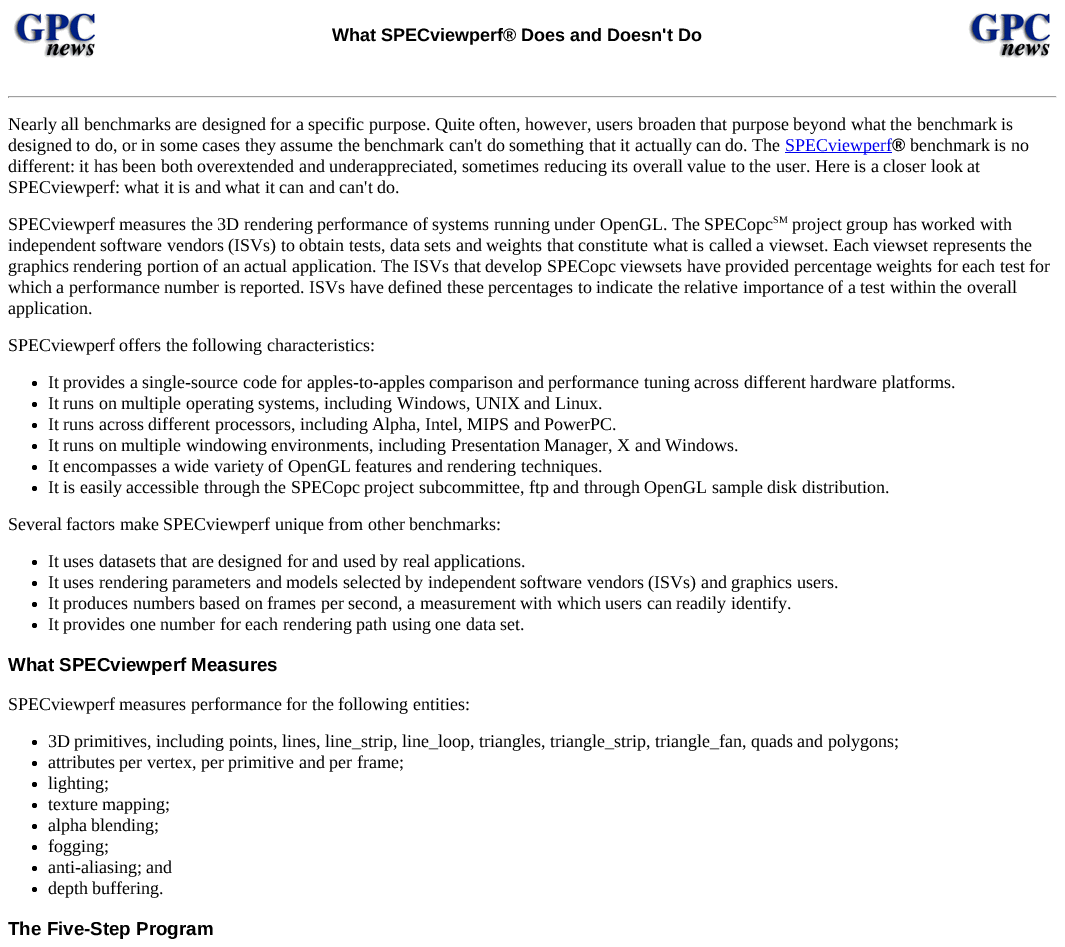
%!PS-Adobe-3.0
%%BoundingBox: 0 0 1065 947
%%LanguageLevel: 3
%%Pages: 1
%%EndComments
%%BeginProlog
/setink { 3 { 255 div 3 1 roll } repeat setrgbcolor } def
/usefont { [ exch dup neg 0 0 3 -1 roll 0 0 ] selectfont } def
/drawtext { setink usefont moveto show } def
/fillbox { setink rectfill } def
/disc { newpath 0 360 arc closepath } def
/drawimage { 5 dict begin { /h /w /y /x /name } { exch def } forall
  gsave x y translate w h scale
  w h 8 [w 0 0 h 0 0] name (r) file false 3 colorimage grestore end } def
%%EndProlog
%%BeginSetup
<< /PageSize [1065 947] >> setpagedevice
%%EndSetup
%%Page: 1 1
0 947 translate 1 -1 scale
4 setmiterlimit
0 0 1065 947 255 255 255 fillbox
(assets/img1.rgb) 13 13 82 45 drawimage
(What SPECviewperf® Does and Doesn't Do) 332 41 /LiberationSans-Bold 18 0 0 0 drawtext
(assets/img1.rgb) 968 13 82 45 drawimage
8 96 1049 1 159 159 159 fillbox
1056 96 1 2 238 238 238 fillbox
8 97 1049 1 238 238 238 fillbox
8 96 1 2 159 159 159 fillbox
(Nearly all benchmarks are designed for a specific purpose. Quite often, however, users broaden that purpose beyond what the benchmark is) 8 130 /LiberationSerif-Regular 18 0 0 0 drawtext
(designed to do, or in some cases they assume the benchmark can't do something that it actually can do. The) 8 151 /LiberationSerif-Regular 18 0 0 0 drawtext
785 152 107 1 0 0 238 fillbox
(SPECviewperf) 785 151 /LiberationSerif-Regular 18 0 0 238 drawtext
(®) 892 151 /LiberationSans-Bold 18 0 0 0 drawtext
(benchmark is no) 910 151 /LiberationSerif-Regular 18 0 0 0 drawtext
(different: it has been both overextended and underappreciated, sometimes reducing its overall value to the user. Here is a closer look at) 8 172 /LiberationSerif-Regular 18 0 0 0 drawtext
(SPECviewperf: what it is and what it can and can't do.) 8 193 /LiberationSerif-Regular 18 0 0 0 drawtext
(SPECviewperf measures the 3D rendering performance of systems running under OpenGL. The SPECopc) 8 230 /LiberationSerif-Regular 18 0 0 0 drawtext
(SM) 773 223 /LiberationSerif-Regular 10 0 0 0 drawtext
(project group has worked with) 792 230 /LiberationSerif-Regular 18 0 0 0 drawtext
(independent software vendors \(ISVs\) to obtain tests, data sets and weights that constitute what is called a viewset. Each viewset represents the) 8 251 /LiberationSerif-Regular 18 0 0 0 drawtext
(graphics rendering portion of an actual application. The ISVs that develop SPECopc viewsets have provided percentage weights for each test for) 8 272 /LiberationSerif-Regular 18 0 0 0 drawtext
(which a performance number is reported. ISVs have defined these percentages to indicate the relative importance of a test within the overall) 8 293 /LiberationSerif-Regular 18 0 0 0 drawtext
(application.) 8 314 /LiberationSerif-Regular 18 0 0 0 drawtext
(SPECviewperf offers the following characteristics:) 8 351 /LiberationSerif-Regular 18 0 0 0 drawtext
34.5 383.5 2.5 disc fill
(It provides a single-source code for apples-to-apples comparison and performance tuning across different hardware platforms.) 48 388 /LiberationSerif-Regular 18 0 0 0 drawtext
34.5 404.5 2.5 disc fill
(It runs on multiple operating systems, including Windows, UNIX and Linux.) 48 409 /LiberationSerif-Regular 18 0 0 0 drawtext
34.5 425.5 2.5 disc fill
(It runs across different processors, including Alpha, Intel, MIPS and PowerPC.) 48 430 /LiberationSerif-Regular 18 0 0 0 drawtext
34.5 446.5 2.5 disc fill
(It runs on multiple windowing environments, including Presentation Manager, X and Windows.) 48 451 /LiberationSerif-Regular 18 0 0 0 drawtext
34.5 467.5 2.5 disc fill
(It encompasses a wide variety of OpenGL features and rendering techniques.) 48 472 /LiberationSerif-Regular 18 0 0 0 drawtext
34.5 488.5 2.5 disc fill
(It is easily accessible through the SPECopc project subcommittee, ftp and through OpenGL sample disk distribution.) 48 493 /LiberationSerif-Regular 18 0 0 0 drawtext
(Several factors make SPECviewperf unique from other benchmarks:) 8 530 /LiberationSerif-Regular 18 0 0 0 drawtext
34.5 562.5 2.5 disc fill
(It uses datasets that are designed for and used by real applications.) 48 567 /LiberationSerif-Regular 18 0 0 0 drawtext
34.5 583.5 2.5 disc fill
(It uses rendering parameters and models selected by independent software vendors \(ISVs\) and graphics users.) 48 588 /LiberationSerif-Regular 18 0 0 0 drawtext
34.5 604.5 2.5 disc fill
(It produces numbers based on frames per second, a measurement with which users can readily identify.) 48 609 /LiberationSerif-Regular 18 0 0 0 drawtext
34.5 625.5 2.5 disc fill
(It provides one number for each rendering path using one data set.) 48 630 /LiberationSerif-Regular 18 0 0 0 drawtext
(What SPECviewperf Measures) 8 671 /LiberationSans-Bold 18.75 0 0 0 drawtext
(SPECviewperf measures performance for the following entities:) 8 710 /LiberationSerif-Regular 18 0 0 0 drawtext
34.5 742.5 2.5 disc fill
(3D primitives, including points, lines, line_strip, line_loop, triangles, triangle_strip, triangle_fan, quads and polygons;) 48 747 /LiberationSerif-Regular 18 0 0 0 drawtext
34.5 763.5 2.5 disc fill
(attributes per vertex, per primitive and per frame;) 48 768 /LiberationSerif-Regular 18 0 0 0 drawtext
34.5 784.5 2.5 disc fill
(lighting;) 48 789 /LiberationSerif-Regular 18 0 0 0 drawtext
34.5 805.5 2.5 disc fill
(texture mapping;) 48 810 /LiberationSerif-Regular 18 0 0 0 drawtext
34.5 826.5 2.5 disc fill
(alpha blending;) 48 831 /LiberationSerif-Regular 18 0 0 0 drawtext
34.5 847.5 2.5 disc fill
(fogging;) 48 852 /LiberationSerif-Regular 18 0 0 0 drawtext
34.5 868.5 2.5 disc fill
(anti-aliasing; and) 48 873 /LiberationSerif-Regular 18 0 0 0 drawtext
34.5 889.5 2.5 disc fill
(depth buffering.) 48 894 /LiberationSerif-Regular 18 0 0 0 drawtext
(The Five-Step Program) 8 935 /LiberationSans-Bold 18.75 0 0 0 drawtext
showpage
%%EOF
